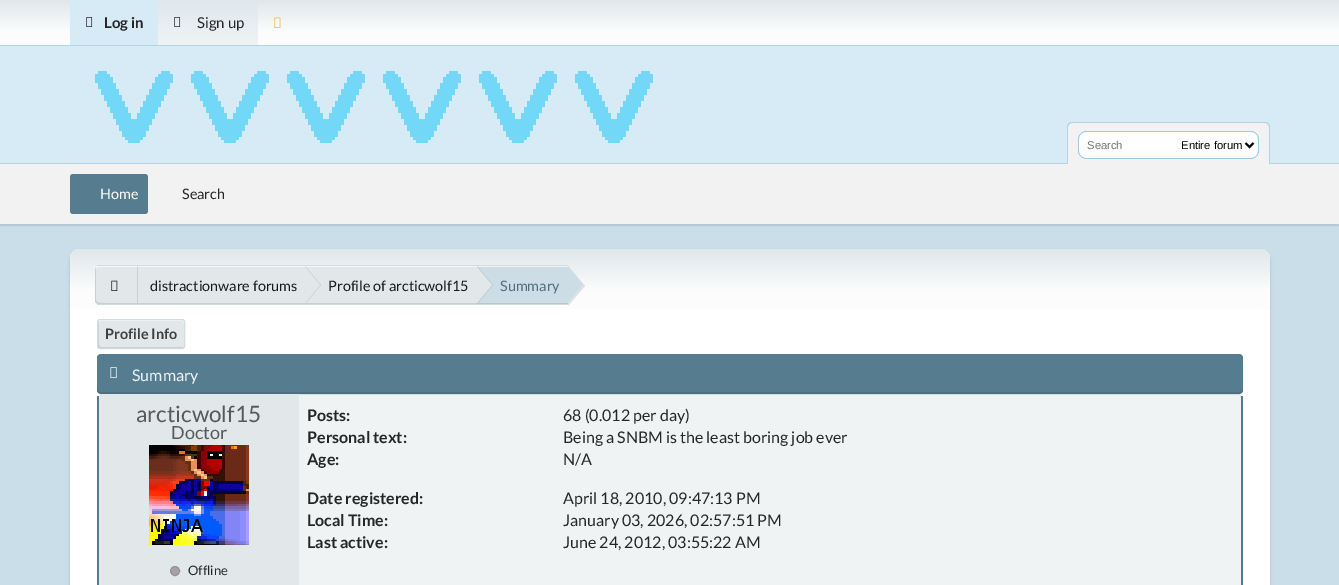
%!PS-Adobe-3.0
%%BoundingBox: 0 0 1339 585
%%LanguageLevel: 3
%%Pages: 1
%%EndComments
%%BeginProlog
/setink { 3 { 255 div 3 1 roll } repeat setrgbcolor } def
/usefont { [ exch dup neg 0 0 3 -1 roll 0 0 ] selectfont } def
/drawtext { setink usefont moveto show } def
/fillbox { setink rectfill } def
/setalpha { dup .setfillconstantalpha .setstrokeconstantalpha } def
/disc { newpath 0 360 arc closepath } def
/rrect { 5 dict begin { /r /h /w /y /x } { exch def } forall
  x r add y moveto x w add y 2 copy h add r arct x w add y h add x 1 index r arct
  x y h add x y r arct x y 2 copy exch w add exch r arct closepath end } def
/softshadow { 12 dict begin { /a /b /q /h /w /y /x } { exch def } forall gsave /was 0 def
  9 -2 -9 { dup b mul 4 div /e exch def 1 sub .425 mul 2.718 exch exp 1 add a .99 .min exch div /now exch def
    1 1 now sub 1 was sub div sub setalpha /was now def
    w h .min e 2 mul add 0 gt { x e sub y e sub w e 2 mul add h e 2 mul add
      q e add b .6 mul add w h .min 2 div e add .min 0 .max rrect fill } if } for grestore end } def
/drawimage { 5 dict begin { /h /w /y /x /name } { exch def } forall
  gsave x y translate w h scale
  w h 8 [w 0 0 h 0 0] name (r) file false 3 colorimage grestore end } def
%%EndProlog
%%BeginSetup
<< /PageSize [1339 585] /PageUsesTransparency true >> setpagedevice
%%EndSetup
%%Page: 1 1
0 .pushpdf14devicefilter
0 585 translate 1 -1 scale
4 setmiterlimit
0 0 1339 585 201 222 232 fillbox
gsave 0 0 moveto 1339 0 lineto 1339 45 lineto 0 45 lineto closepath clip newpath
<< /ShadingType 2 /ColorSpace /DeviceRGB /Coords [670 0 670 45] /Extend [true true] /Function << /FunctionType 3 /Domain [0 1] /Functions [<< /FunctionType 2 /Domain [0 1] /C0 [0.878 0.906 0.922] /C1 [0.988 0.988 0.988] /N 1 >> << /FunctionType 2 /Domain [0 1] /C0 [0.988 0.988 0.988] /C1 [0.988 0.988 0.988] /N 1 >>] /Bounds [0.7] /Encode [0 1 0 1] >> >> shfill grestore
0 45 1339 1 181 212 227 fillbox
70 0 88 45 214 235 245 fillbox
(assets/img1.rgb) 86 17 7 10 drawimage
(Log in) 104 28 /Lato-Bold 15 38 38 38 drawtext
gsave 158 0 moveto 258 0 lineto 258 45 lineto 158 45 lineto closepath clip newpath
<< /ShadingType 2 /ColorSpace /DeviceRGB /Coords [208 0 208 45] /Extend [true true] /Function << /FunctionType 2 /Domain [0 1] /C0 [0.867 0.91 0.933] /C1 [0.941 0.953 0.957] /N 1 >> >> shfill grestore
(assets/img2.rgb) 174 17 7 10 drawimage
(Sign up) 197 28 /Lato-Regular 15 38 38 38 drawtext
(assets/img3.rgb) 274 17 7 11 drawimage
0 46 1339 117 214 235 245 fillbox
0 163 1339 1 181 212 227 fillbox
(assets/img4.rgb) 95 71 558 72 drawimage
0 0 0 setink
0 166 1339 60 0 0.5 0.1 softshadow
242 242 242 setink
1072 123 moveto 1265 123 lineto 1267 123 1269 125 1269 127 curveto 1269 164 lineto 1068 164 lineto 1068 127 lineto 1068 125 1070 123 1072 123 curveto closepath fill
181 212 227 setink
1072 122 moveto 1265 122 lineto 1268 122 1270 124 1270 127 curveto 1270 164 lineto 1067 164 lineto 1067 127 lineto 1067 124 1069 122 1072 122 curveto closepath 1072 123 moveto 1265 123 lineto 1267 123 1269 125 1269 127 curveto 1269 164 lineto 1068 164 lineto 1068 127 lineto 1068 125 1070 123 1072 123 curveto closepath eofill
255 255 255 setink
1086 131 moveto 1145 131 lineto 1145 159 lineto 1086 159 lineto 1081.5 159 1078 155.5 1078 151 curveto 1078 139 lineto 1078 134.5 1081.5 131 1086 131 curveto closepath fill
159 202 223 setink
1086 131 moveto 1145 131 lineto 1145 159 lineto 1086 159 lineto 1082 159 1078 155 1078 151 curveto 1078 139 lineto 1078 135 1082 131 1086 131 curveto closepath 1086 132 moveto 1145 132 lineto 1145 158 lineto 1086 158 lineto 1082 158 1079 155 1079 151 curveto 1079 139 lineto 1079 135 1082 132 1086 132 curveto closepath eofill
(Search) 1087 149 /LiberationSans-Regular 11.25 117 117 117 drawtext
1145 132 32 26 255 255 255 fillbox
1145 131 32 1 159 202 223 fillbox
1145 158 32 1 159 202 223 fillbox
255 255 255 setink
1177 131 moveto 1251 131 lineto 1255.5 131 1259 134.5 1259 139 curveto 1259 151 lineto 1259 155.5 1255.5 159 1251 159 curveto 1177 159 lineto closepath fill
159 202 223 setink
1177 131 moveto 1251 131 lineto 1255 131 1259 135 1259 139 curveto 1259 151 lineto 1259 155 1255 159 1251 159 curveto 1177 159 lineto closepath 1177 132 moveto 1251 132 lineto 1255 132 1258 135 1258 139 curveto 1258 151 lineto 1258 155 1255 158 1251 158 curveto 1177 158 lineto closepath eofill
0 0 0 setink
2 setlinewidth
1245.5 143 moveto 1249.5 147 lineto 1253.5 143 lineto stroke
(Entire forum) 1181 149 /LiberationSans-Regular 11.25 0 0 0 drawtext
0 164 1339 60 242 242 242 fillbox
86 124 143 setink
70 174 78 40 3 rrect fill
(Home) 100 199 /Lato-Regular 14.4 255 255 255 drawtext
(Search) 182 199 /Lato-Regular 14.4 38 38 38 drawtext
0 0 0 setink
70 251 1200 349 10 1.5 0.14 softshadow
gsave 80 249 moveto 1260 249 lineto 1265.5 249 1270 253.5 1270 259 curveto 1270 309 lineto 70 309 lineto 70 259 lineto 70 253.5 74.5 249 80 249 curveto closepath clip newpath
<< /ShadingType 2 /ColorSpace /DeviceRGB /Coords [670 249 670 309] /Extend [true true] /Function << /FunctionType 3 /Domain [0 1] /Functions [<< /FunctionType 2 /Domain [0 1] /C0 [0.878 0.906 0.922] /C1 [0.988 0.988 0.988] /N 1 >> << /FunctionType 2 /Domain [0 1] /C0 [0.988 0.988 0.988] /C1 [0.988 0.988 0.988] /N 1 >>] /Bounds [0.7] /Encode [0 1 0 1] >> >> shfill grestore
226 231 233 setink
99 266 moveto 137 266 lineto 137 304 lineto 99 304 lineto 97 304 95 303 95 301 curveto 95 269 lineto 95 267 97 266 99 266 curveto closepath fill
246 248 248 setink
99 267 moveto 137 267 lineto 137 266 lineto 99 266 lineto 97 266 95 267 95 269 curveto 95 270 lineto 95 268 97 267 99 267 curveto closepath fill
0.1 setalpha
0 0 0 setink
95 269 moveto 95 301 lineto 95 303 97 304 99 304 curveto 137 304 lineto 137 303 lineto 106 303 lineto 94 303 96 303 96 289 curveto 96 267 lineto closepath fill
1 setalpha
97 265 471 1 211 219 222 fillbox
97 304 471 1 211 219 222 fillbox
(assets/img5.rgb) 111 280 7 11 drawimage
137 267 340 37 226 231 233 fillbox
137 266 340 1 246 248 248 fillbox
gsave
137 266 168 38 rectclip
0.1 setalpha
0 0 0 setink
97 264 moveto 404 264 lineto 404 306 lineto 97 306 lineto 96 306 95 305 95 304 curveto 95 266 lineto 95 265 96 264 97 264 curveto closepath 138 265 moveto 138 303 lineto 306 303 lineto 306 265 lineto closepath eofill
grestore
gsave
305 266 172 38 rectclip
0.1 setalpha
0 0 0 setink
206 306 moveto 206 264 lineto 576 264 lineto 576 306 lineto closepath 306 265 moveto 306 303 lineto 478 303 lineto 478 265 lineto closepath eofill
grestore
203 208 210 setink
306 303 moveto 306 267 lineto 321 285 lineto closepath fill
226 231 233 setink
305 303 moveto 305 267 lineto 320 285 lineto closepath fill
(distractionware forums) 150 291 /Lato-Regular 14.4 26 26 26 drawtext
477 267 91 37 205 221 229 fillbox
477 266 91 1 240 245 247 fillbox
gsave
477 266 91 38 rectclip
0.1 setalpha
0 0 0 setink
378 306 moveto 378 264 lineto 667 264 lineto 667 306 lineto closepath 478 265 moveto 478 303 lineto 569 303 lineto 569 265 lineto closepath eofill
grestore
185 199 206 setink
478 303 moveto 478 267 lineto 493 285 lineto closepath fill
226 231 233 setink
477 303 moveto 477 267 lineto 492 285 lineto closepath fill
(Profile of arcticwolf15) 328 291 /Lato-Regular 14.4 26 26 26 drawtext
0.1 setalpha
0 0 0 setink
568 306 moveto 568 266 lineto 585 286 lineto closepath fill
1 setalpha
(Summary) 500 291 /Lato-Regular 14.4 77 111 128 drawtext
205 221 229 setink
568 303 moveto 568 267 lineto 583 285 lineto closepath fill
70 309 1200 276 255 255 255 fillbox
226 231 233 setink
97 319 88 30 3 rrect fill
246 248 248 setink
100 321 moveto 182 321 lineto 183 321 184 322 184 323 curveto 184 316 171 320 168 320 curveto 114 320 lineto 111 320 98 316 98 323 curveto 98 322 99 321 100 321 curveto closepath fill
0.1 setalpha
0 0 0 setink
99 320 moveto 97 321 98 335 98 338 curveto 98 352 97 348 114 348 curveto 182 348 lineto 184 347 lineto 115 347 lineto 96 347 99 350 99 333 curveto closepath fill
1 setalpha
211 219 222 setink
1 setlinewidth
97.5 319.5 87 29 2.5 rrect stroke
(Profile Info) 105 339 /Lato-Bold 14.4 64 64 64 drawtext
86 124 143 setink
97 354 1146 40 4 rrect fill
0.1 setalpha
0 0 0 setink
97 388 moveto 97 390 lineto 97 392 99 394 101 394 curveto 1239 394 lineto 1241 394 1243 392 1243 390 curveto 1243 388 lineto 1243 390 1241 392 1239 392 curveto 101 392 lineto 99 392 97 390 97 388 curveto closepath fill
1 setalpha
(assets/img6.rgb) 110 367 7 11 drawimage
(Summary) 132 381 /Lato-Regular 16 237 244 247 drawtext
240 243 244 setink
101 394 moveto 1239 394 lineto 1240 394 1241 396 1241 398 curveto 1241 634 lineto 1241 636 1240 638 1239 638 curveto 101 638 lineto 100 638 99 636 99 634 curveto 99 398 lineto 99 396 100 394 101 394 curveto closepath fill
0.1 setalpha
0 0 0 setink
101 395 moveto 1239 395 lineto 1240 395 1241 397 1241 399 curveto 1241 398 lineto 1241 396 1240 394 1239 394 curveto 101 394 lineto 100 394 99 396 99 398 curveto 99 399 lineto 99 397 100 395 101 395 curveto closepath fill
1 setalpha
1241 396 2 189 86 124 143 fillbox
97 396 2 189 86 124 143 fillbox
226 231 233 setink
101 394 moveto 100 394 99 396 99 398 curveto 99 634 lineto 99 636 100 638 101 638 curveto 299 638 lineto 299 394 lineto closepath fill
(arcticwolf15) 136 422 /Lato-Regular 22.5 89 89 89 drawtext
(Doctor) 171 439 /Lato-Regular 18 89 89 89 drawtext
(assets/img7.rgb) 149 445 100 100 drawimage
167 162 162 setink
175 571 4.5 disc gsave fill grestore
150 146 146 setink
stroke
(Offline) 188 575 /Lato-Regular 13 38 38 38 drawtext
(Posts:) 307 421 /Lato-Bold 16 38 38 38 drawtext
(68 \(0.012 per day\)) 563 421 /Lato-Regular 16 38 38 38 drawtext
(Personal text:) 307 443 /Lato-Bold 16 38 38 38 drawtext
(Being a SNBM is the least boring job ever) 563 443 /Lato-Regular 16 38 38 38 drawtext
(Age:) 307 465 /Lato-Bold 16 38 38 38 drawtext
(N/A) 563 465 /Lato-Regular 16 38 38 38 drawtext
(Date registered:) 307 504 /Lato-Bold 16 38 38 38 drawtext
(April 18, 2010, 09:47:13 PM) 563 504 /Lato-Regular 16 38 38 38 drawtext
(Local Time:) 307 526 /Lato-Bold 16 38 38 38 drawtext
(January 03, 2026, 02:57:51 PM) 563 526 /Lato-Regular 16 38 38 38 drawtext
(Last active:) 307 548 /Lato-Bold 16 38 38 38 drawtext
(June 24, 2012, 03:55:22 AM) 563 548 /Lato-Regular 16 38 38 38 drawtext
.poppdf14devicefilter showpage
%%EOF
